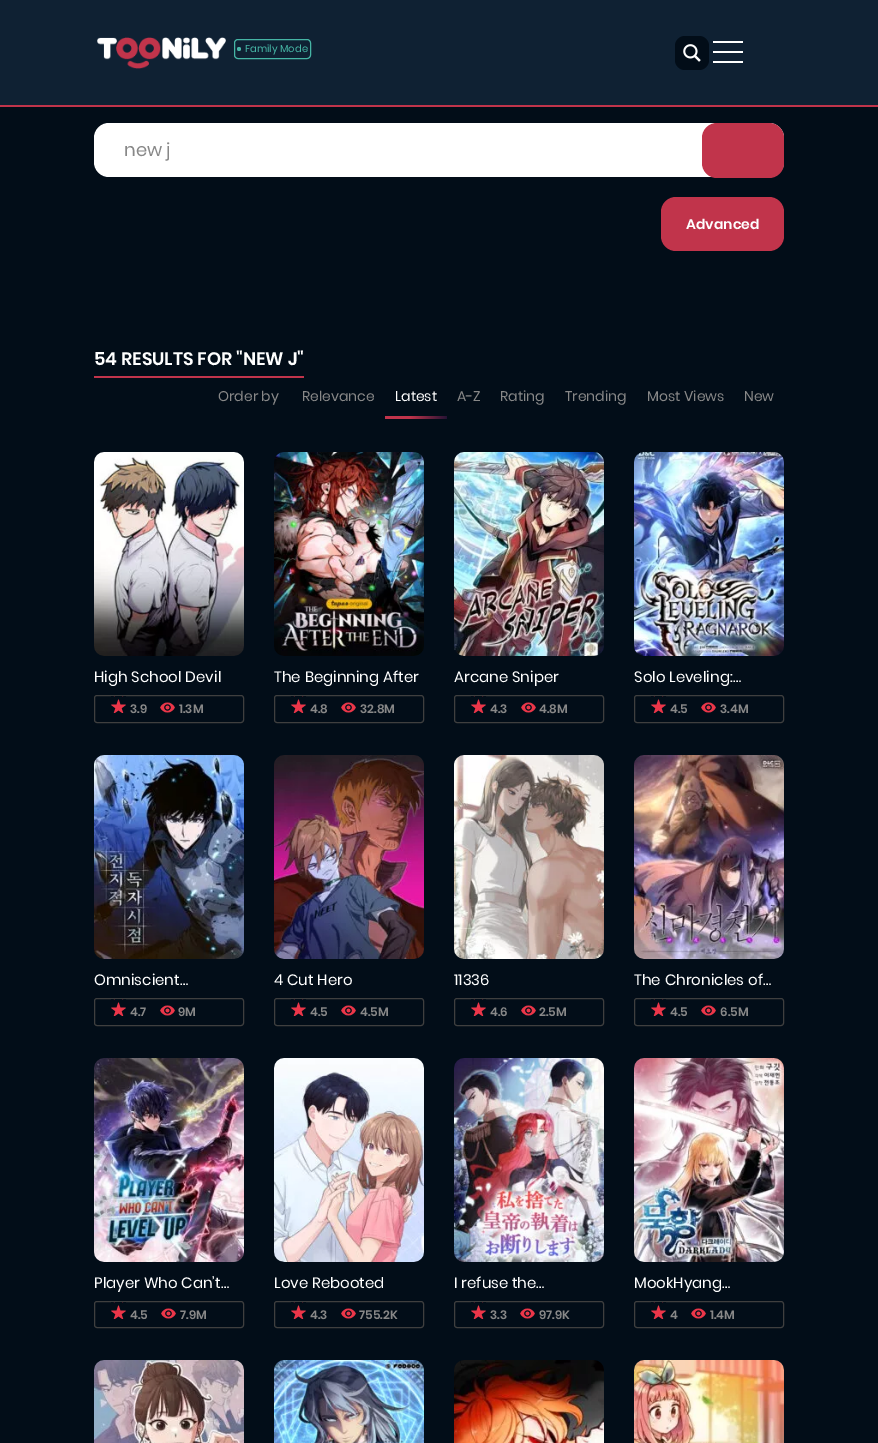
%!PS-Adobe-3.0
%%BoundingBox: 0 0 878 1443
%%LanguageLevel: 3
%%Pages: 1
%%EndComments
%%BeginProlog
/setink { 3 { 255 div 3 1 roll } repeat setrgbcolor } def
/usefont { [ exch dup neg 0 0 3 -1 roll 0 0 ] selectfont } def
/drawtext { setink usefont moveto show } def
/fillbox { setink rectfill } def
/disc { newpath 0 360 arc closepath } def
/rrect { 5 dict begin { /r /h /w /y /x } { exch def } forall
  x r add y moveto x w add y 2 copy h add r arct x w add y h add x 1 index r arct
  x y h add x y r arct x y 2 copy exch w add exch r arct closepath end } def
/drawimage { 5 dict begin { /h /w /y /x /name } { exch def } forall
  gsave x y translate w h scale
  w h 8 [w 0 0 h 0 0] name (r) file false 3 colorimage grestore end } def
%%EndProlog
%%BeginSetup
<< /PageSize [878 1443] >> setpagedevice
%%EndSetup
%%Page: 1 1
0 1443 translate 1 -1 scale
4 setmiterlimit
0 0 878 1443 2 13 24 fillbox
0 105 878 2 193 52 75 fillbox
0 0 878 105 15 33 51 fillbox
(assets/img1.rgb) 97 37 129 32 drawimage
70 181 165 setink
234.5 39.5 76 19 3.5 rrect stroke
239 49 2 disc fill
(Family Mode) 245 52 /Poppins-Regular 10 70 181 165 drawtext
2 13 24 setink
675 36 34 34 10 rrect fill
(assets/img2.rgb) 683 44 18 18 drawimage
713 41 30 2 255 255 255 fillbox
713 51 30 2 255 255 255 fillbox
713 61 30 2 255 255 255 fillbox
94 123 690 54 15 rrect fill
(new j) 124 156 /Poppins-Regular 18 136 136 136 drawtext
193 52 75 setink
702 123 82 55 15 rrect fill
661 197 123 54 15 rrect fill
(Advanced) 686 229 /Poppins-SemiBold 14 255 255 255 drawtext
94 376 210 2 193 52 75 fillbox
(54 RESULTS FOR "NEW J") 94 365 /Poppins-SemiBold 18 255 255 255 drawtext
(Order by) 218 401 /Poppins-Regular 14 136 136 136 drawtext
(Relevance) 302 401 /Poppins-Regular 14 136 136 136 drawtext
(Latest) 395 401 /Poppins-Regular 14 255 255 255 drawtext
gsave 385 416 moveto 447 416 lineto 447 419 lineto 385 419 lineto closepath clip newpath
<< /ShadingType 2 /ColorSpace /DeviceRGB /Coords [385 418 447 418] /Extend [true true] /Function << /FunctionType 3 /Domain [0 1] /Functions [<< /FunctionType 2 /Domain [0 1] /C0 [0.757 0.204 0.294] /C1 [0.757 0.204 0.294] /N 1 >> << /FunctionType 2 /Domain [0 1] /C0 [0.757 0.204 0.294] /C1 [0.149 0.075 0.208] /N 1 >>] /Bounds [0.4] /Encode [0 1 0 1] >> >> shfill grestore
(A-Z) 457 401 /Poppins-Regular 14 136 136 136 drawtext
(Rating) 500 401 /Poppins-Regular 14 136 136 136 drawtext
(Trending) 565 401 /Poppins-Regular 14 136 136 136 drawtext
(Most Views) 647 401 /Poppins-Regular 14 136 136 136 drawtext
(New) 744 401 /Poppins-Regular 14 136 136 136 drawtext
(assets/img3.rgb) 94 452 150 204 drawimage
(High School Devil) 94 682 /Poppins-Regular 15 255 255 255 drawtext
63 63 63 setink
94.5 695.5 149 27 2.5 rrect stroke
(assets/img4.rgb) 111 696 15 17 drawimage
(3.9) 130 713 /Poppins-SemiBold 12 136 136 136 drawtext
(assets/img5.rgb) 160 702 15 11 drawimage
(1.3M) 179 713 /Poppins-SemiBold 12 136 136 136 drawtext
(assets/img6.rgb) 274 452 150 204 drawimage
(The Beginning After) 274 682 /Poppins-Regular 15 255 255 255 drawtext
63 63 63 setink
274.5 695.5 149 27 2.5 rrect stroke
(assets/img4.rgb) 291 696 15 17 drawimage
(4.8) 310 713 /Poppins-SemiBold 12 136 136 136 drawtext
(assets/img5.rgb) 341 702 15 11 drawimage
(32.8M) 360 713 /Poppins-SemiBold 12 136 136 136 drawtext
(assets/img7.rgb) 454 452 150 204 drawimage
(Arcane Sniper) 454 682 /Poppins-Regular 15 255 255 255 drawtext
63 63 63 setink
454.5 695.5 149 27 2.5 rrect stroke
(assets/img4.rgb) 471 696 15 17 drawimage
(4.3) 490 713 /Poppins-SemiBold 12 136 136 136 drawtext
(assets/img5.rgb) 521 702 15 11 drawimage
(4.8M) 539 713 /Poppins-SemiBold 12 136 136 136 drawtext
(assets/img8.rgb) 634 452 150 204 drawimage
(Solo Leveling:…) 634 682 /Poppins-Regular 15 255 255 255 drawtext
63 63 63 setink
634.5 695.5 149 27 2.5 rrect stroke
(assets/img4.rgb) 651 696 15 17 drawimage
(4.5) 670 713 /Poppins-SemiBold 12 136 136 136 drawtext
(assets/img5.rgb) 701 702 15 11 drawimage
(3.4M) 720 713 /Poppins-SemiBold 12 136 136 136 drawtext
(assets/img9.rgb) 94 755 150 204 drawimage
(Omniscient…) 94 985 /Poppins-Regular 15 255 255 255 drawtext
63 63 63 setink
94.5 998.5 149 27 2.5 rrect stroke
(assets/img4.rgb) 111 999 15 17 drawimage
(4.7) 130 1016 /Poppins-SemiBold 12 136 136 136 drawtext
(assets/img5.rgb) 160 1005 15 11 drawimage
(9M) 178 1016 /Poppins-SemiBold 12 136 136 136 drawtext
(assets/img10.rgb) 274 755 150 204 drawimage
(4 Cut Hero) 274 985 /Poppins-Regular 15 255 255 255 drawtext
63 63 63 setink
274.5 998.5 149 27 2.5 rrect stroke
(assets/img4.rgb) 291 999 15 17 drawimage
(4.5) 310 1016 /Poppins-SemiBold 12 136 136 136 drawtext
(assets/img5.rgb) 341 1005 15 11 drawimage
(4.5M) 360 1016 /Poppins-SemiBold 12 136 136 136 drawtext
(assets/img11.rgb) 454 755 150 204 drawimage
(11336) 454 985 /Poppins-Regular 15 255 255 255 drawtext
63 63 63 setink
454.5 998.5 149 27 2.5 rrect stroke
(assets/img4.rgb) 471 999 15 17 drawimage
(4.6) 490 1016 /Poppins-SemiBold 12 136 136 136 drawtext
(assets/img5.rgb) 521 1005 15 11 drawimage
(2.5M) 539 1016 /Poppins-SemiBold 12 136 136 136 drawtext
(assets/img12.rgb) 634 755 150 204 drawimage
(The Chronicles of…) 634 985 /Poppins-Regular 15 255 255 255 drawtext
63 63 63 setink
634.5 998.5 149 27 2.5 rrect stroke
(assets/img4.rgb) 651 999 15 17 drawimage
(4.5) 670 1016 /Poppins-SemiBold 12 136 136 136 drawtext
(assets/img5.rgb) 701 1005 15 11 drawimage
(6.5M) 720 1016 /Poppins-SemiBold 12 136 136 136 drawtext
(assets/img13.rgb) 94 1058 150 204 drawimage
(Player Who Can’t…) 94 1288 /Poppins-Regular 15 255 255 255 drawtext
63 63 63 setink
94.5 1301.5 149 26 2.5 rrect stroke
(assets/img4.rgb) 111 1302 15 17 drawimage
(4.5) 130 1319 /Poppins-SemiBold 12 136 136 136 drawtext
(assets/img5.rgb) 161 1308 15 11 drawimage
(7.9M) 180 1319 /Poppins-SemiBold 12 136 136 136 drawtext
(assets/img14.rgb) 274 1058 150 204 drawimage
(Love Rebooted) 274 1288 /Poppins-Regular 15 255 255 255 drawtext
63 63 63 setink
274.5 1301.5 149 26 2.5 rrect stroke
(assets/img4.rgb) 291 1302 15 17 drawimage
(4.3) 310 1319 /Poppins-SemiBold 12 136 136 136 drawtext
(assets/img5.rgb) 341 1308 15 11 drawimage
(755.2K) 359 1319 /Poppins-SemiBold 12 136 136 136 drawtext
(assets/img15.rgb) 454 1058 150 204 drawimage
(I refuse the…) 454 1288 /Poppins-Regular 15 255 255 255 drawtext
63 63 63 setink
454.5 1301.5 149 26 2.5 rrect stroke
(assets/img4.rgb) 471 1302 15 17 drawimage
(3.3) 490 1319 /Poppins-SemiBold 12 136 136 136 drawtext
(assets/img5.rgb) 520 1308 15 11 drawimage
(97.9K) 539 1319 /Poppins-SemiBold 12 136 136 136 drawtext
(assets/img16.rgb) 634 1058 150 204 drawimage
(MookHyang…) 634 1288 /Poppins-Regular 15 255 255 255 drawtext
63 63 63 setink
634.5 1301.5 149 26 2.5 rrect stroke
(assets/img4.rgb) 651 1302 15 17 drawimage
(4) 670 1319 /Poppins-SemiBold 12 136 136 136 drawtext
(assets/img5.rgb) 691 1308 15 11 drawimage
(1.4M) 710 1319 /Poppins-SemiBold 12 136 136 136 drawtext
(assets/img17.rgb) 94 1360 150 83 drawimage
(assets/img18.rgb) 274 1360 150 83 drawimage
(assets/img19.rgb) 454 1360 150 83 drawimage
(assets/img20.rgb) 634 1360 150 83 drawimage
showpage
%%EOF
